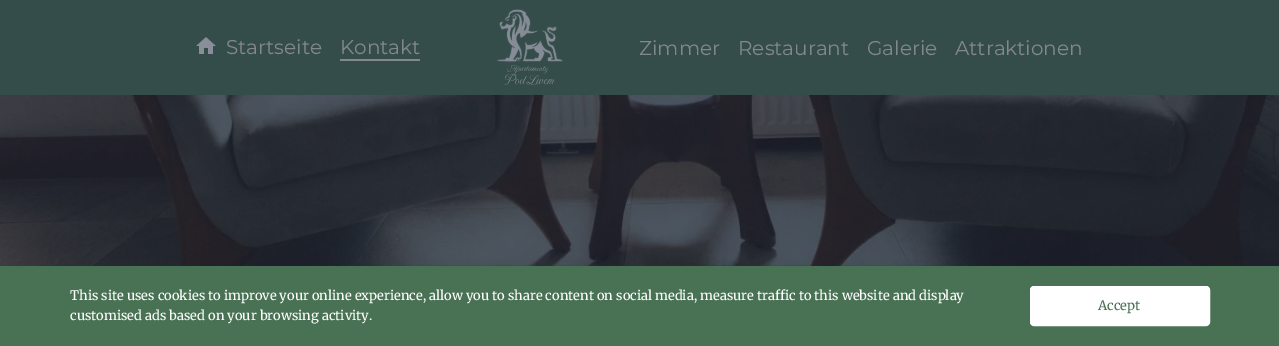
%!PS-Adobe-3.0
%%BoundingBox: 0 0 1279 346
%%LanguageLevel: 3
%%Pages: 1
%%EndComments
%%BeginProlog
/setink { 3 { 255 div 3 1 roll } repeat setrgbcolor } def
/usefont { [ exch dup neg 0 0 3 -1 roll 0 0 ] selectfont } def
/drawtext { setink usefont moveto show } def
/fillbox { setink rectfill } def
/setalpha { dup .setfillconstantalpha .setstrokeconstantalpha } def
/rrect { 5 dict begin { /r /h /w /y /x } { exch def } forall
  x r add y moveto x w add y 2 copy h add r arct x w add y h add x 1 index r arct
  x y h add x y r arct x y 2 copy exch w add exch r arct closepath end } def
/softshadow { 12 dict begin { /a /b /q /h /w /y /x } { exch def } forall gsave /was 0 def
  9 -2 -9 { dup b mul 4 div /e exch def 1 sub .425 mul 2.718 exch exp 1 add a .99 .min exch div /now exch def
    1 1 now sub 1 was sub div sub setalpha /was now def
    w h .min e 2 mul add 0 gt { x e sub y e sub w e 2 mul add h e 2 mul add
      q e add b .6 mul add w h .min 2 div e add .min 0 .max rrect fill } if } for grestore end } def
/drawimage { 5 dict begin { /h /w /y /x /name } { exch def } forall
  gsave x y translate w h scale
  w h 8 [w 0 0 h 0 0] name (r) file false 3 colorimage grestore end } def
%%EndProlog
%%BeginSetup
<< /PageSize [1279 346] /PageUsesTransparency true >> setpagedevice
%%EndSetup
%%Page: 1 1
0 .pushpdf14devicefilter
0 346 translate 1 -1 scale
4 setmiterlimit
0 0 1279 346 255 255 255 fillbox
0 0 1279 95 53 77 74 fillbox
(assets/img1.rgb) 196 37 20 17 drawimage
(Startseite) 226 54 /Montserrat-Regular 20 130 136 142 drawtext
340 59 80 2 130 136 142 fillbox
(Kontakt) 340 54 /Montserrat-Regular 20 130 136 142 drawtext
(assets/img2.rgb) 497 9 66 76 drawimage
(Zimmer) 639 55 /Montserrat-Regular 20 130 136 142 drawtext
(Restaurant) 738 55 /Montserrat-Regular 20 130 136 142 drawtext
(Galerie) 867 55 /Montserrat-Regular 20 130 136 142 drawtext
(Attraktionen) 955 55 /Montserrat-Regular 20 130 136 142 drawtext
(assets/img3.rgb) 0 95 1279 171 drawimage
36 47 66 setink
-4 272 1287 68 0 10 0.31 softshadow
0.08 setalpha
-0.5 265.5 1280 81 rectstroke
1 setalpha
0 266 1279 80 73 113 84 fillbox
(This site uses cookies to improve your online experience, allow you to share content on social media, measure traffic to this website and display) 70 300 /Merriweather-Regular 13 255 255 255 drawtext
(customised ads based on your browsing activity.) 70 320 /Merriweather-Regular 13 255 255 255 drawtext
1030.5 286.5 179 39 3.5 rrect gsave fill grestore
stroke
(Accept) 1098 310 /Merriweather-Regular 13 73 113 84 drawtext
.poppdf14devicefilter showpage
%%EOF
